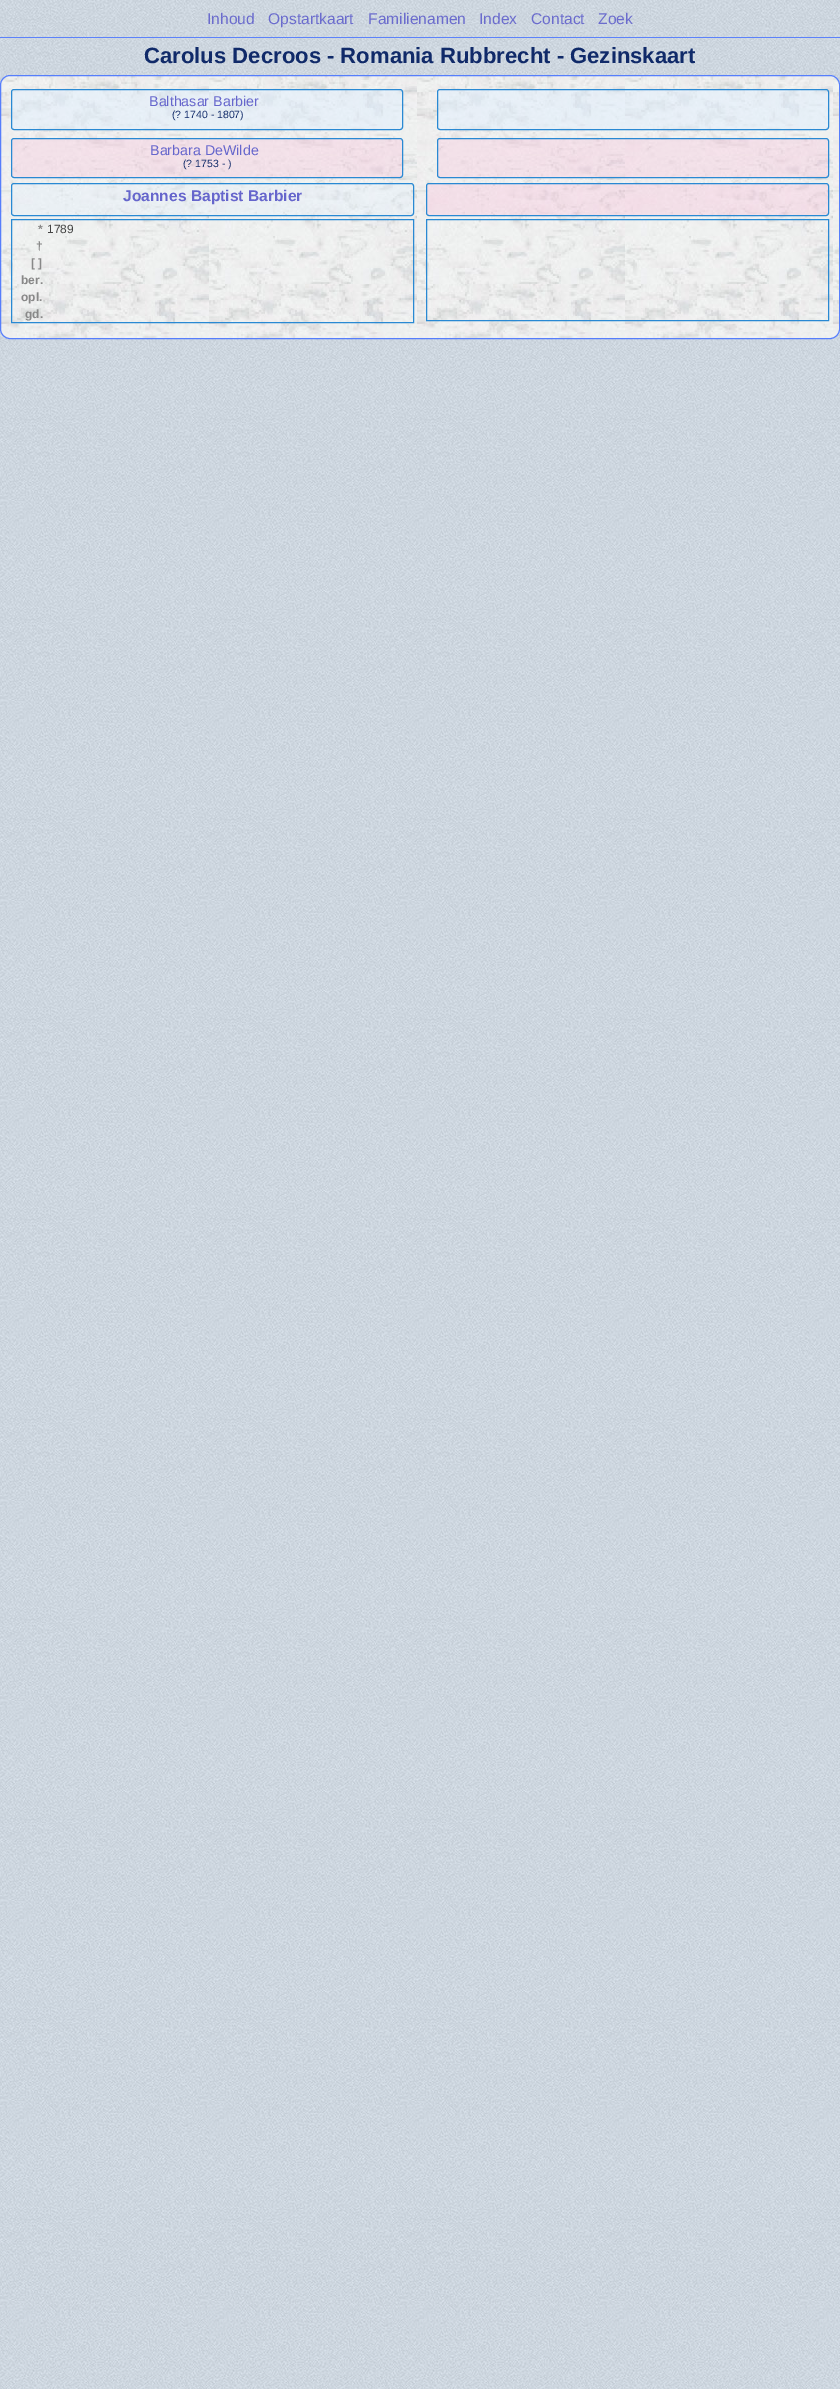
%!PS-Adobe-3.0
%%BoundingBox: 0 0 840 2389
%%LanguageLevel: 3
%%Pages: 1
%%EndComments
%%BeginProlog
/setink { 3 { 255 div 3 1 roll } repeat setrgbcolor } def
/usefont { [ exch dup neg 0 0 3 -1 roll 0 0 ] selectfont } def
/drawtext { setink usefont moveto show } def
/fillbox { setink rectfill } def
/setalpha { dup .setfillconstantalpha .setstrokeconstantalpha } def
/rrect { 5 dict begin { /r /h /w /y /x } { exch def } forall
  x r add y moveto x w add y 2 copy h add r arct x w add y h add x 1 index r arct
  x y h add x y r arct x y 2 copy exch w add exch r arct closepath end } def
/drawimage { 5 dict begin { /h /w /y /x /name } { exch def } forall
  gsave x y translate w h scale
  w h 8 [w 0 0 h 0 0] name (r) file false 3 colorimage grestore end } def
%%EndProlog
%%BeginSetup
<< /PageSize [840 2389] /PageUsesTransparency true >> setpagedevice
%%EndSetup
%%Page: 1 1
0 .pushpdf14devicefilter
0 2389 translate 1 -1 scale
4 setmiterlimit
0 0 840 2389 255 255 255 fillbox
(assets/img1.rgb) 0 0 840 2389 drawimage
(assets/img2.rgb) 0 37 840 1 drawimage
0.95 setalpha
0 37 840 1 86 126 252 fillbox
1 setalpha
(Inhoud) 207 24 /LiberationSans-Regular 15.6 107 108 205 drawtext
(Opstartkaart) 268 24 /LiberationSans-Regular 15.6 107 108 205 drawtext
(Familienamen) 368 24 /LiberationSans-Regular 15.6 107 108 205 drawtext
(Index) 479 24 /LiberationSans-Regular 15.6 107 108 205 drawtext
(Contact) 531 24 /LiberationSans-Regular 15.6 107 108 205 drawtext
(Zoek) 598 24 /LiberationSans-Regular 15.6 107 108 205 drawtext
(Carolus Decroos - Romania Rubbrecht - Gezinskaart) 144 63 /LiberationSans-Bold 22.1 16 42 105 drawtext
(assets/img3.rgb) 0 75 840 264 drawimage
86 126 252 setink
0.5 75.5 839 263 9.5 rrect stroke
0.51 setalpha
224 239 254 setink
11.5 89.5 391 40 2.5 rrect fill
1 setalpha
41 137 211 setink
11.5 89.5 391 40 2.5 rrect stroke
(Balthasar Barbier) 149 106 /LiberationSans-Regular 14.25 102 102 204 drawtext
(\(? 1740 - 1807\)) 172 118 /LiberationSans-Regular 10.5 16 42 105 drawtext
0.51 setalpha
224 239 254 setink
437.5 89.5 391 40 2.5 rrect fill
1 setalpha
41 137 211 setink
437.5 89.5 391 40 2.5 rrect stroke
0.28 setalpha
252 183 214 setink
11.5 138.5 391 39 2.5 rrect fill
1 setalpha
41 137 211 setink
11.5 138.5 391 39 2.5 rrect stroke
(Barbara DeWilde) 150 155 /LiberationSans-Regular 14.25 102 102 204 drawtext
(\(? 1753 - \)) 183 167 /LiberationSans-Regular 10.5 16 42 105 drawtext
0.28 setalpha
252 183 214 setink
437.5 138.5 391 39 2.5 rrect fill
1 setalpha
41 137 211 setink
437.5 138.5 391 39 2.5 rrect stroke
0.3 setalpha
224 239 254 setink
11.5 183.5 402 32 2.5 rrect fill
1 setalpha
41 137 211 setink
11.5 183.5 402 32 2.5 rrect stroke
(Joannes Baptist Barbier) 123 201 /LiberationSans-Bold 15.6 102 102 204 drawtext
0.3 setalpha
252 183 214 setink
426.5 183.5 402 32 2.5 rrect fill
1 setalpha
41 137 211 setink
426.5 183.5 402 32 2.5 rrect stroke
11.5 219.5 402 103 rectstroke
(*) 38 233 /LiberationSans-Bold 12 136 136 136 drawtext
(1789) 47 233 /LiberationSans-Regular 12 68 68 68 drawtext
(†) 36 250 /LiberationSans-Bold 12 136 136 136 drawtext
([ ]) 31 267 /LiberationSans-Bold 12 136 136 136 drawtext
(ber.) 21 284 /LiberationSans-Bold 12 136 136 136 drawtext
(opl.) 21 301 /LiberationSans-Bold 12 136 136 136 drawtext
(gd.) 25 318 /LiberationSans-Bold 12 136 136 136 drawtext
41 137 211 setink
426.5 219.5 402 101 rectstroke
.poppdf14devicefilter showpage
%%EOF
